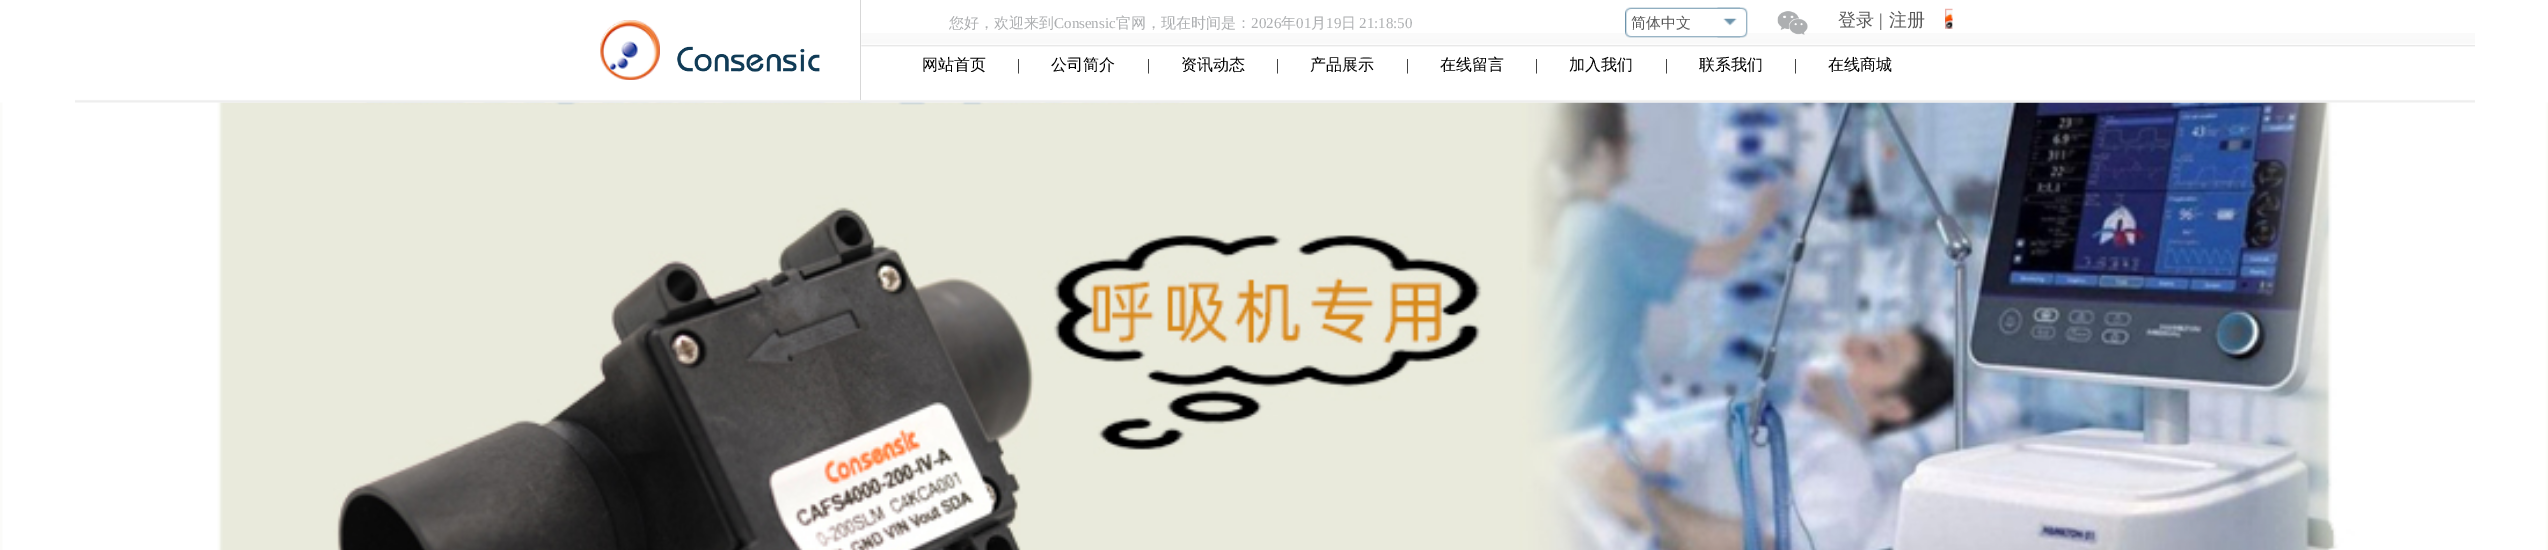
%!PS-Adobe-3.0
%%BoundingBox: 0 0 2548 550
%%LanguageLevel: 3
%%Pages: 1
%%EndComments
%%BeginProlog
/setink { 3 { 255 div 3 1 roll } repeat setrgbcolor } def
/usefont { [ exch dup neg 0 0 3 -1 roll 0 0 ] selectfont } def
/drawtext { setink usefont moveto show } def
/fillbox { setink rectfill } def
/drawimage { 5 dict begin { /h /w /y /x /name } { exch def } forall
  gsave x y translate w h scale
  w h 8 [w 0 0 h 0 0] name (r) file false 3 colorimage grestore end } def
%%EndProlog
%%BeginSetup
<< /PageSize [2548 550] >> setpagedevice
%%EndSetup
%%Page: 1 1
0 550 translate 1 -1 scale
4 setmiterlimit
0 0 2548 550 255 255 255 fillbox
(assets/img8.rgb) 0 102 2548 448 drawimage
(assets/img7.rgb) 75 33 2400 70 drawimage
(assets/img1.rgb) 600 20 60 60 drawimage
(assets/img2.rgb) 677 46 143 26 drawimage
860 0 1 100 215 215 215 fillbox
(您好，欢迎来到) 949 28 /WenQuanYiZenHei-Medium 15 173 175 177 drawtext
(Consensic) 1054 28 /LiberationSerif-Regular 15 173 175 177 drawtext
(官网，现在时间是：) 1116 28 /WenQuanYiZenHei-Medium 15 173 175 177 drawtext
(2026) 1251 28 /LiberationSerif-Regular 15 173 175 177 drawtext
(年) 1281 28 /WenQuanYiZenHei-Medium 15 173 175 177 drawtext
(01) 1296 28 /LiberationSerif-Regular 15 173 175 177 drawtext
(月) 1311 28 /WenQuanYiZenHei-Medium 15 173 175 177 drawtext
(19) 1326 28 /LiberationSerif-Regular 15 173 175 177 drawtext
(日) 1341 28 /WenQuanYiZenHei-Medium 15 173 175 177 drawtext
(21:18:50) 1359 28 /LiberationSerif-Regular 15 173 175 177 drawtext
(assets/img3.rgb) 1625 7 116 31 drawimage
(简体中文) 1631 28 /WenQuanYiZenHei-Medium 15 90 90 90 drawtext
(assets/img4.rgb) 1717 7 31 31 drawimage
(assets/img5.rgb) 1777 11 31 24 drawimage
(登录) 1838 26 /WenQuanYiZenHei-Medium 18 90 90 90 drawtext
(|) 1879 26 /LiberationSerif-Regular 18 90 90 90 drawtext
(注册) 1889 26 /WenQuanYiZenHei-Medium 18 90 90 90 drawtext
(assets/img6.rgb) 1945 8 8 21 drawimage
(网站首页) 922 70 /WenQuanYiZenHei-Medium 16 0 0 0 drawtext
(|) 1017 70 /LiberationSerif-Regular 16 0 0 0 drawtext
(公司简介) 1051 70 /WenQuanYiZenHei-Medium 16 0 0 0 drawtext
(|) 1147 70 /LiberationSerif-Regular 16 0 0 0 drawtext
(资讯动态) 1181 70 /WenQuanYiZenHei-Medium 16 0 0 0 drawtext
(|) 1276 70 /LiberationSerif-Regular 16 0 0 0 drawtext
(产品展示) 1310 70 /WenQuanYiZenHei-Medium 16 0 0 0 drawtext
(|) 1406 70 /LiberationSerif-Regular 16 0 0 0 drawtext
(在线留言) 1440 70 /WenQuanYiZenHei-Medium 16 0 0 0 drawtext
(|) 1535 70 /LiberationSerif-Regular 16 0 0 0 drawtext
(加入我们) 1569 70 /WenQuanYiZenHei-Medium 16 0 0 0 drawtext
(|) 1665 70 /LiberationSerif-Regular 16 0 0 0 drawtext
(联系我们) 1699 70 /WenQuanYiZenHei-Medium 16 0 0 0 drawtext
(|) 1794 70 /LiberationSerif-Regular 16 0 0 0 drawtext
(在线商城) 1828 70 /WenQuanYiZenHei-Medium 16 0 0 0 drawtext
showpage
%%EOF
